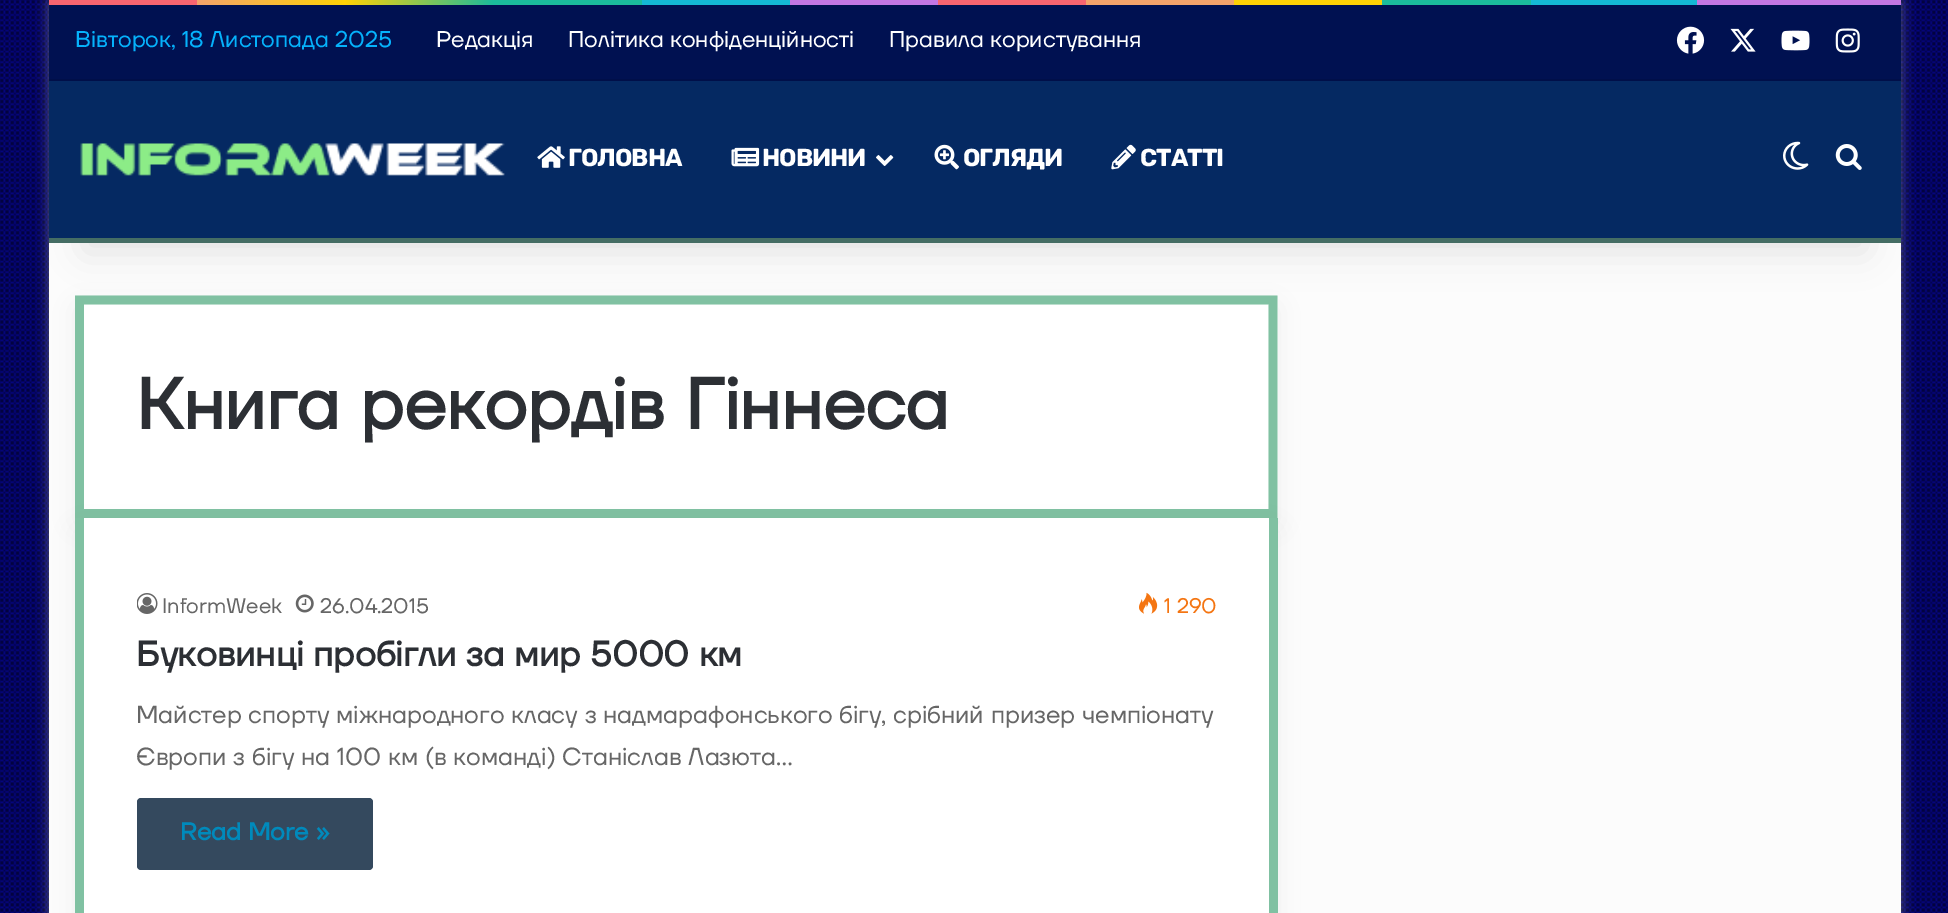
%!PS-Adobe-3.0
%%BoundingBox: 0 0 1948 913
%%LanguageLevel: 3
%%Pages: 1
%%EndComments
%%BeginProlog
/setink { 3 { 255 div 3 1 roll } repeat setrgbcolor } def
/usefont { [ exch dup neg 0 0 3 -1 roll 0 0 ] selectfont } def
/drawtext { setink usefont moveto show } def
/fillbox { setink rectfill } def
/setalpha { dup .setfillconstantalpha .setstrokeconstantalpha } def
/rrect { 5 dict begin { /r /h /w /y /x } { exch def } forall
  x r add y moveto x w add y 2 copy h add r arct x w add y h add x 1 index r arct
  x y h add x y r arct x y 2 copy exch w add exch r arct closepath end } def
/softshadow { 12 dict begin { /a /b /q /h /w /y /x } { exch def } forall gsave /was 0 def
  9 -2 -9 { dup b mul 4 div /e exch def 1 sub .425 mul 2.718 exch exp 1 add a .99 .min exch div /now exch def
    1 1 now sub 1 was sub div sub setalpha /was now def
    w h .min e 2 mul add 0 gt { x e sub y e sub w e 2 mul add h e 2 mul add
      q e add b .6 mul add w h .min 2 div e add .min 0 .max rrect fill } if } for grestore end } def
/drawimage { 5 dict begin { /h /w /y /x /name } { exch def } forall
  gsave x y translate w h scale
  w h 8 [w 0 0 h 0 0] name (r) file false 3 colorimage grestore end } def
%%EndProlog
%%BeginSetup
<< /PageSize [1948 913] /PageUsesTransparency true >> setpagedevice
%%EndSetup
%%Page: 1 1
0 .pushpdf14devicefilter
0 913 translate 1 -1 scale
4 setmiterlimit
0 0 1948 913 5 5 129 fillbox
(assets/img1.rgb) 0 0 1948 913 drawimage
171 171 171 setink
49 2 1852 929 0 6 0.5 softshadow
49 243 1852 670 252 252 252 fillbox
gsave 49 0 moveto 1901 0 lineto 1901 5 lineto 49 5 lineto closepath clip newpath
<< /ShadingType 2 /ColorSpace /DeviceRGB /Coords [49 2.6 1901 2.6] /Extend [true true] /Function << /FunctionType 3 /Domain [0 1] /Functions [<< /FunctionType 2 /Domain [0 1] /C0 [0.969 0.396 0.439] /C1 [0.969 0.396 0.439] /N 1 >> << /FunctionType 2 /Domain [0 1] /C0 [0.953 0.643 0.42] /C1 [1 0.824 0.02] /N 1 >> << /FunctionType 2 /Domain [0 1] /C0 [1 0.824 0.02] /C1 [0.106 0.737 0.608] /N 1 >> << /FunctionType 2 /Domain [0 1] /C0 [0.106 0.737 0.608] /C1 [0.106 0.737 0.608] /N 1 >> << /FunctionType 2 /Domain [0 1] /C0 [0.078 0.725 0.835] /C1 [0.078 0.725 0.835] /N 1 >> << /FunctionType 2 /Domain [0 1] /C0 [0.765 0.467 0.894] /C1 [0.765 0.467 0.894] /N 1 >> << /FunctionType 2 /Domain [0 1] /C0 [0.969 0.396 0.439] /C1 [0.969 0.396 0.439] /N 1 >> << /FunctionType 2 /Domain [0 1] /C0 [0.953 0.643 0.42] /C1 [0.953 0.643 0.42] /N 1 >> << /FunctionType 2 /Domain [0 1] /C0 [1 0.824 0.02] /C1 [1 0.824 0.02] /N 1 >> << /FunctionType 2 /Domain [0 1] /C0 [0.106 0.737 0.608] /C1 [0.106 0.737 0.608] /N 1 >> << /FunctionType 2 /Domain [0 1] /C0 [0.078 0.725 0.835] /C1 [0.078 0.725 0.835] /N 1 >> << /FunctionType 2 /Domain [0 1] /C0 [0.765 0.467 0.894] /C1 [0.765 0.467 0.894] /N 1 >>] /Bounds [0.08 0.16 0.24 0.32 0.4 0.48 0.56 0.64 0.72 0.8 0.89] /Encode [0 1 0 1 0 1 0 1 0 1 0 1 0 1 0 1 0 1 0 1 0 1 0 1] >> >> shfill grestore
0 0 0 setink
75 305 1203 222 4 13 0.05 softshadow
255 255 255 setink
79 296 moveto 1274 296 lineto 1276 296 1278 298 1278 300 curveto 1278 518 lineto 75 518 lineto 75 300 lineto 75 298 77 296 79 296 curveto closepath fill
128 193 162 setink
8.8 setlinewidth
79.5 300 moveto 1273 300 lineto 1273 513.5 lineto 79.5 513.5 lineto closepath stroke
0 0 0 setink
84 84 1782 168 0 17.5 0.1 softshadow
49 5 1852 74 0 17 81 fillbox
49 79 1852 2 0 15 73 fillbox
(Вівторок, 18 Листопада 2025) 75 47 /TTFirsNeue-Regular 22.75 5 178 252 drawtext
(Редакція) 436 47 /TTFirsNeue-Regular 22.75 255 255 255 drawtext
(Політика конфіденційності) 568 47 /TTFirsNeue-Regular 22.75 255 255 255 drawtext
(Правила користування) 889 47 /TTFirsNeue-Regular 22.75 255 255 255 drawtext
(assets/img2.rgb) 1676 26 29 28 drawimage
(assets/img3.rgb) 1730 28 26 24 drawimage
(assets/img4.rgb) 1781 30 29 21 drawimage
(assets/img5.rgb) 1835 28 25 25 drawimage
49 81 1852 157 5 41 98 fillbox
49 238 1852 5 69 109 100 fillbox
(assets/img6.rgb) 80 143 425 33 drawimage
(assets/img7.rgb) 537 146 28 22 drawimage
/Rubik-Bold 24.5 usefont
255 255 255 setink
568 166 moveto -1 0 (ГОЛОВНА) ashow
(assets/img8.rgb) 731 147 29 20 drawimage
762 166 moveto -1 0 (НОВИНИ) ashow
(assets/img9.rgb) 876 155 18 11 drawimage
(assets/img10.rgb) 934 144 25 26 drawimage
963 166 moveto -1 0 (ОГЛЯДИ) ashow
(assets/img11.rgb) 1111 144 25 26 drawimage
1140 166 moveto -1 0 (СТАТТІ) ashow
(assets/img12.rgb) 1783 141 26 29 drawimage
(assets/img13.rgb) 1835 144 27 26 drawimage
(Книга рекордів Гіннеса) 136 429 /TTFirsNeue-Bold 71.75 44 47 52 drawtext
0 0 0 setink
75 527 1203 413 4 13 0.05 softshadow
84 518 1185 395 255 255 255 fillbox
1269 518 9 395 128 193 162 fillbox
75 518 9 395 128 193 162 fillbox
(assets/img14.rgb) 137 593 21 21 drawimage
(InformWeek) 162 613 /TTFirsNeue-Regular 21 102 102 102 drawtext
(assets/img15.rgb) 295 594 19 19 drawimage
(26.04.2015) 320 613 /TTFirsNeue-Regular 21 102 102 102 drawtext
(assets/img16.rgb) 1139 592 19 22 drawimage
(1 290) 1164 613 /TTFirsNeue-Regular 21 244 117 18 drawtext
(Буковинці пробігли за мир 5000 км) 136 666 /TTFirsNeue-Bold 35 44 47 52 drawtext
(Майстер спорту міжнародного класу з надмарафонського бігу, срібний призер чемпіонату) 136 723 /TTFirsNeue-Regular 24.5 102 102 102 drawtext
(Європи з бігу на 100 км \(в команді\) Станіслав Лазюта…) 136 765 /TTFirsNeue-Regular 24.5 102 102 102 drawtext
52 73 94 setink
137 798 236 72 4 rrect fill
(Read More ») 180 840 /TTFirsNeue-Bold 24.5 0 138 188 drawtext
.poppdf14devicefilter showpage
%%EOF
